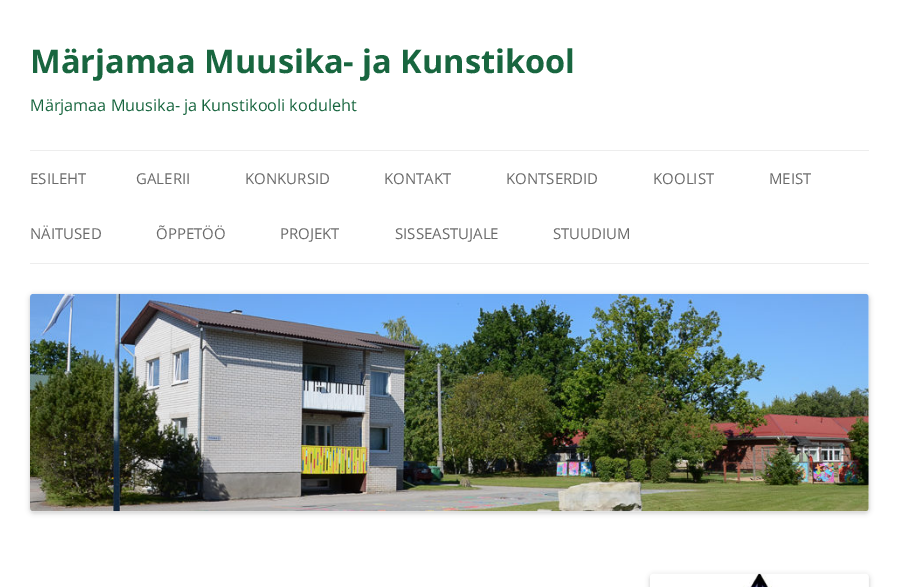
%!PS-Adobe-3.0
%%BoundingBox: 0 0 898 587
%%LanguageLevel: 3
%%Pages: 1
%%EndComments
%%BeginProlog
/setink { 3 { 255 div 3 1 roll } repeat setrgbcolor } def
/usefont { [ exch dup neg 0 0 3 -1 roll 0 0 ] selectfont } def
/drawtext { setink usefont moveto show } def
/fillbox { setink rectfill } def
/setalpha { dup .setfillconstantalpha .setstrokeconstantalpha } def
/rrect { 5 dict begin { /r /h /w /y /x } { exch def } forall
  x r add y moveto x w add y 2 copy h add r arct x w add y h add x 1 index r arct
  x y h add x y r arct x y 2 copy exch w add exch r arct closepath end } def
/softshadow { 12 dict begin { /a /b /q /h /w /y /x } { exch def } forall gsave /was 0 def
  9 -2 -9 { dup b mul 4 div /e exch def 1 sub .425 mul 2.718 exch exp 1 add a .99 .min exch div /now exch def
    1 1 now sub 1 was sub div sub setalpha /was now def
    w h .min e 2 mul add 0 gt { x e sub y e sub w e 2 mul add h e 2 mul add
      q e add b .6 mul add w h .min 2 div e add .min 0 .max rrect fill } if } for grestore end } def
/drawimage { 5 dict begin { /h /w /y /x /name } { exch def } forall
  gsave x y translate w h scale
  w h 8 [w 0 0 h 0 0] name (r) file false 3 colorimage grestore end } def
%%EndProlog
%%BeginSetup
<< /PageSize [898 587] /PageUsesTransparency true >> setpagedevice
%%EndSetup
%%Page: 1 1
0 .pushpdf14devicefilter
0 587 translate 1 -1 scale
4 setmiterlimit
0 0 898 587 255 255 255 fillbox
(Märjamaa Muusika- ja Kunstikool) 30 73 /OpenSans-Bold 32.5 24 102 63 drawtext
(Märjamaa Muusika- ja Kunstikooli koduleht) 30 111 /OpenSans-Regular 16.25 24 102 63 drawtext
30 150 839 1 237 237 237 fillbox
30 263 839 1 237 237 237 fillbox
(ESILEHT) 30 184 /OpenSans-Regular 15 106 106 106 drawtext
(GALERII) 136 184 /OpenSans-Regular 15 106 106 106 drawtext
(KONKURSID) 245 184 /OpenSans-Regular 15 106 106 106 drawtext
(KONTAKT) 384 184 /OpenSans-Regular 15 106 106 106 drawtext
(KONTSERDID) 506 184 /OpenSans-Regular 15 106 106 106 drawtext
(KOOLIST) 653 184 /OpenSans-Regular 15 106 106 106 drawtext
(MEIST) 769 184 /OpenSans-Regular 15 106 106 106 drawtext
(NÄITUSED) 30 239 /OpenSans-Regular 15 106 106 106 drawtext
(ÕPPETÖÖ) 156 239 /OpenSans-Regular 15 106 106 106 drawtext
(PROJEKT) 280 239 /OpenSans-Regular 15 106 106 106 drawtext
(SISSEASTUJALE) 395 239 /OpenSans-Regular 15 106 106 106 drawtext
(STUUDIUM) 553 239 /OpenSans-Regular 15 106 106 106 drawtext
0 0 0 setink
30 295 839 218 4 2.5 0.2 softshadow
(assets/img1.rgb) 30 293 839 219 drawimage
650 575 219 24 4 2.5 0.2 softshadow
(assets/img2.rgb) 650 573 219 14 drawimage
.poppdf14devicefilter showpage
%%EOF
